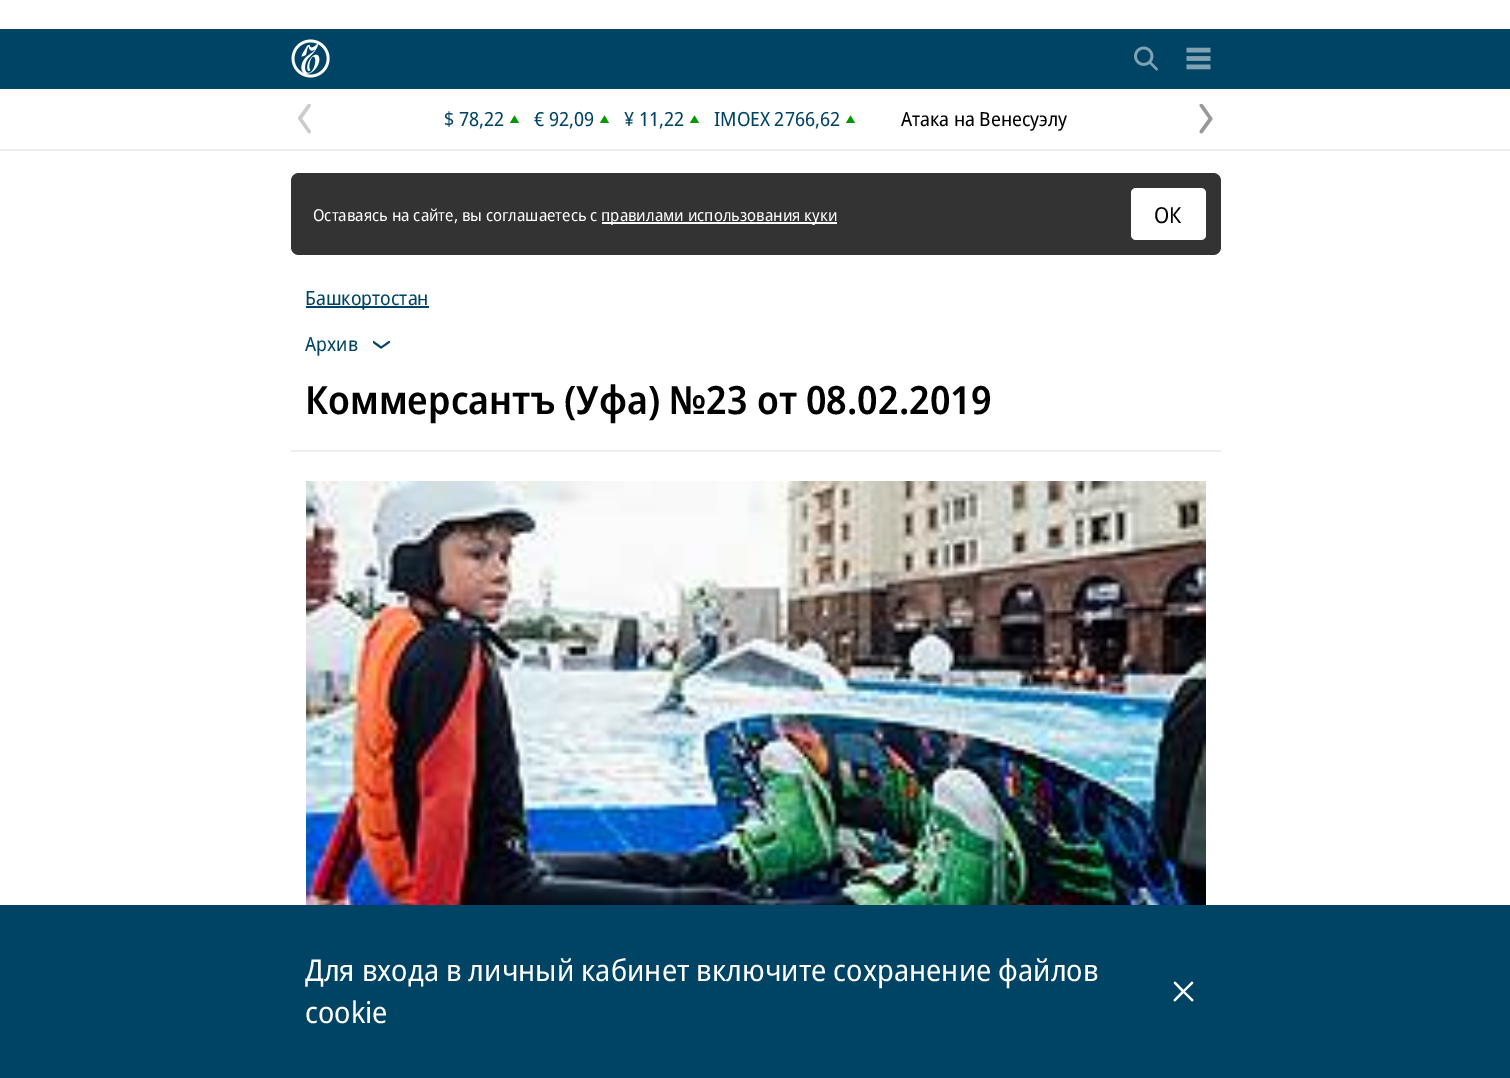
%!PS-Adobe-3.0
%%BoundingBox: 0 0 1510 1078
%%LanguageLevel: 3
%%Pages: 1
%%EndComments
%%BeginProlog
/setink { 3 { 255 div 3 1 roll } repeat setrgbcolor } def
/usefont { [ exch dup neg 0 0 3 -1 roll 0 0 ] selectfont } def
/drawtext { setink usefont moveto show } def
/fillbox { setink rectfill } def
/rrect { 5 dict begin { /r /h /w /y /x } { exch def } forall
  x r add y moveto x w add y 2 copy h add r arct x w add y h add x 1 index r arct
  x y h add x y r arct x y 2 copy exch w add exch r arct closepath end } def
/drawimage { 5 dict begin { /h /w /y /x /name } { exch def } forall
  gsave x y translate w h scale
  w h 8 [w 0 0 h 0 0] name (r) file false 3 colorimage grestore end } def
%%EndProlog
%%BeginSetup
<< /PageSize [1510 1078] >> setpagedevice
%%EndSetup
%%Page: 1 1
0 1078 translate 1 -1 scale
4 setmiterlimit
0 0 1510 1078 255 255 255 fillbox
0 29 1510 60 0 68 101 fillbox
(assets/img1.rgb) 291 39 39 39 drawimage
(assets/img2.rgb) 1134 46 24 25 drawimage
(assets/img3.rgb) 1186 47 25 23 drawimage
0 149 1510 2 238 238 238 fillbox
(assets/img4.rgb) 298 104 13 30 drawimage
($ 78,22) 444 126 /NotoSans-Regular 19.5 0 68 101 drawtext
0 153 0 setink
519 123 moveto 510 123 lineto 514.5 115.5 lineto closepath fill
(€ 92,09) 534 126 /NotoSans-Regular 19.5 0 68 101 drawtext
0 153 0 setink
609 123 moveto 600 123 lineto 604.5 115.5 lineto closepath fill
(¥ 11,22) 624 126 /NotoSans-Regular 19.5 0 68 101 drawtext
0 153 0 setink
699 123 moveto 690 123 lineto 694.5 115.5 lineto closepath fill
(IMOEX 2766,62) 714 126 /NotoSans-Regular 19.5 0 68 101 drawtext
0 153 0 setink
855 123 moveto 846 123 lineto 850.5 115.5 lineto closepath fill
(Атака на Венесуэлу) 901 126 /NotoSans-Regular 19.5 0 0 0 drawtext
(assets/img5.rgb) 1199 104 14 30 drawimage
51 51 51 setink
291 173 930 82 8 rrect fill
(Оставаясь на сайте, вы соглашаетесь с) 313 221 /NotoSans-Regular 16.5 255 255 255 drawtext
602 222 235 2 255 255 255 fillbox
(правилами использования куки) 601 221 /NotoSans-Regular 16.5 255 255 255 drawtext
1131 188 75 52 5 rrect fill
(ОК) 1154 223 /NotoSans-Regular 22 0 0 0 drawtext
306 306 123 2 0 68 101 fillbox
(Башкортостан) 305 305 /NotoSans-Regular 19.5 0 68 101 drawtext
(Архив) 305 351 /NotoSans-Regular 19.5 0 68 101 drawtext
(assets/img6.rgb) 373 340 17 9 drawimage
(Коммерсантъ \(Уфа\) №23 от 08.02.2019) 305 414 /NotoSans-SemiBold 39 0 0 0 drawtext
291 450 930 2 238 238 238 fillbox
(assets/img7.rgb) 306 481 900 424 drawimage
0 905 1510 173 0 68 101 fillbox
(Для входа в личный кабинет включите сохранение файлов) 305 981 /NotoSans-Regular 30 255 255 255 drawtext
(cookie) 305 1023 /NotoSans-Regular 30 255 255 255 drawtext
(assets/img8.rgb) 1173 981 21 21 drawimage
showpage
%%EOF
